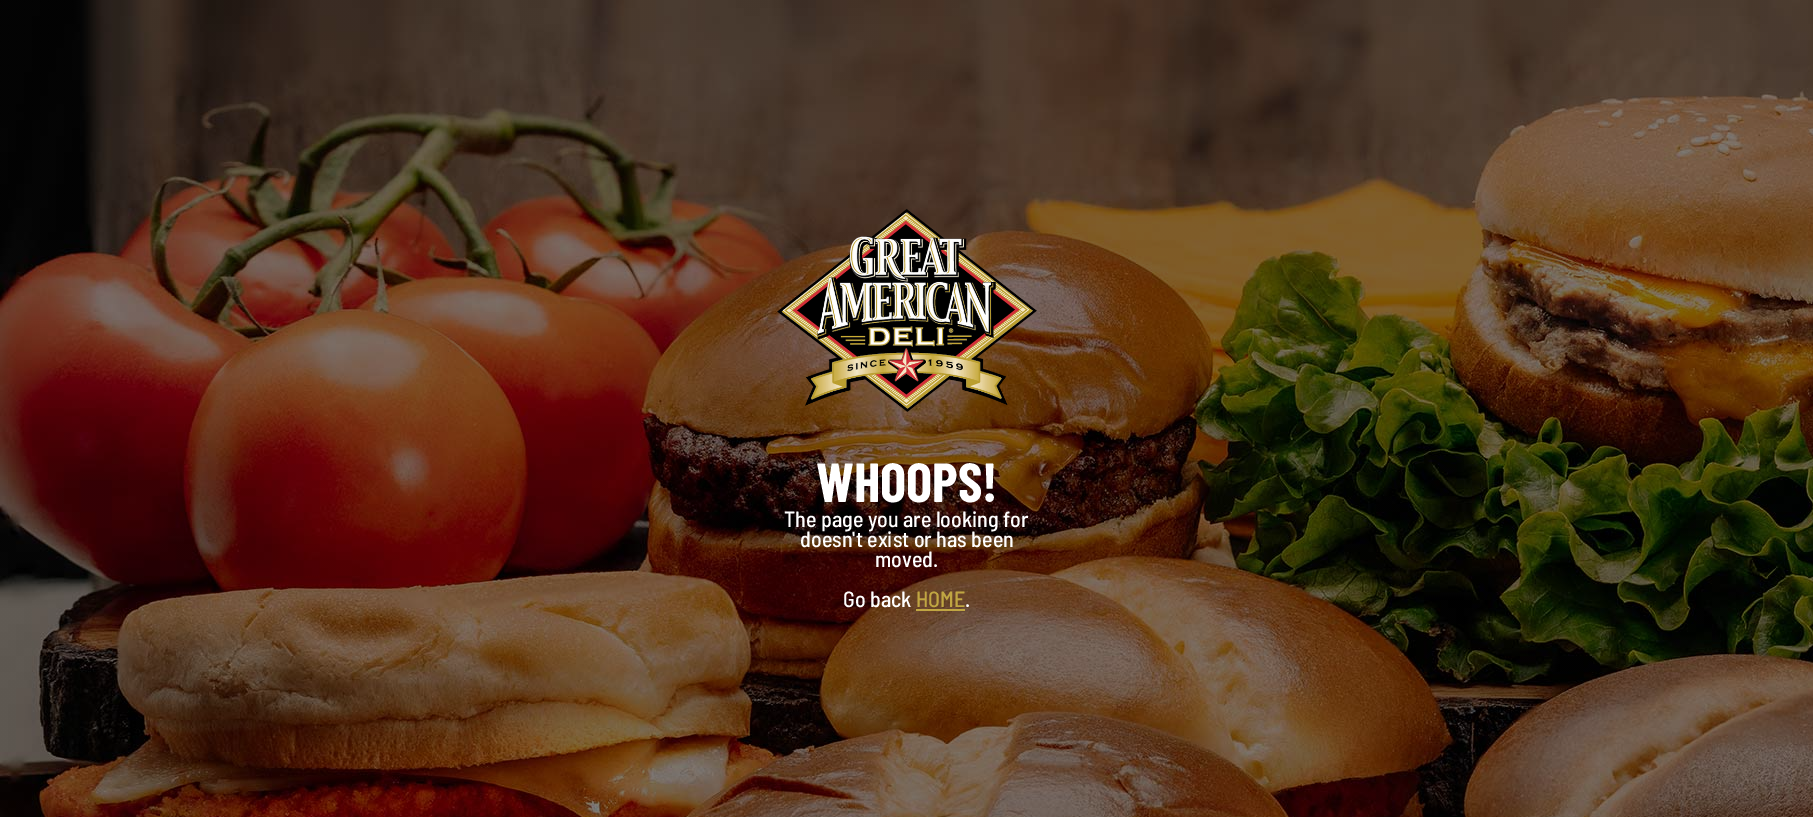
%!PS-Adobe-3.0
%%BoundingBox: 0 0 1813 817
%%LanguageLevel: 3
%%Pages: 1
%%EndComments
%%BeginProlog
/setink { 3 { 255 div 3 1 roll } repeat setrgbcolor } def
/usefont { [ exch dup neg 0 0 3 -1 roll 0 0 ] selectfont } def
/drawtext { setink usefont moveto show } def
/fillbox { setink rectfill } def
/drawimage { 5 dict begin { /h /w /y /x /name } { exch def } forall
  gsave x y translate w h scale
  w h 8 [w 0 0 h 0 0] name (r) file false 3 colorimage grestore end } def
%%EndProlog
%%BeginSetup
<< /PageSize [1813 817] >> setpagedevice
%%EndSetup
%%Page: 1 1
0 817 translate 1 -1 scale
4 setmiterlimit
0 0 1813 817 255 255 255 fillbox
(assets/img1.rgb) 0 0 1813 817 drawimage
(assets/img2.rgb) 777 209 260 203 drawimage
(WHOOPS!) 816 502 /BarlowCondensed-Bold 55 255 255 255 drawtext
(The page you are looking for) 784 527 /BarlowSemiCondensed-Medium 22 255 255 255 drawtext
(doesn't exist or has been) 800 547 /BarlowSemiCondensed-Medium 22 255 255 255 drawtext
(moved.) 875 567 /BarlowSemiCondensed-Medium 22 255 255 255 drawtext
(Go back) 843 607 /BarlowSemiCondensed-Medium 22 255 255 255 drawtext
(HOME) 916 607 /BarlowSemiCondensed-Medium 22 192 166 66 drawtext
916 609 49 2 192 166 66 fillbox
(.) 965 607 /BarlowSemiCondensed-Medium 22 255 255 255 drawtext
showpage
%%EOF
